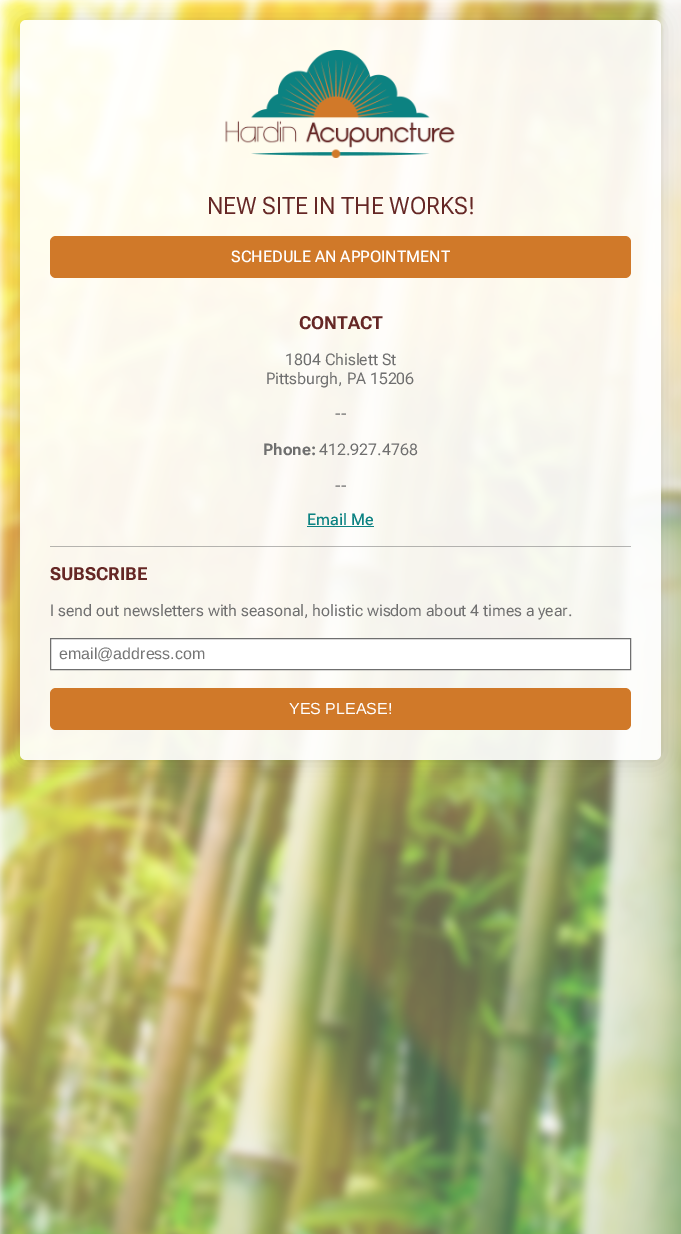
%!PS-Adobe-3.0
%%BoundingBox: 0 0 681 1234
%%LanguageLevel: 3
%%Pages: 1
%%EndComments
%%BeginProlog
/setink { 3 { 255 div 3 1 roll } repeat setrgbcolor } def
/usefont { [ exch dup neg 0 0 3 -1 roll 0 0 ] selectfont } def
/drawtext { setink usefont moveto show } def
/fillbox { setink rectfill } def
/setalpha { dup .setfillconstantalpha .setstrokeconstantalpha } def
/rrect { 5 dict begin { /r /h /w /y /x } { exch def } forall
  x r add y moveto x w add y 2 copy h add r arct x w add y h add x 1 index r arct
  x y h add x y r arct x y 2 copy exch w add exch r arct closepath end } def
/softshadow { 12 dict begin { /a /b /q /h /w /y /x } { exch def } forall gsave /was 0 def
  9 -2 -9 { dup b mul 4 div /e exch def 1 sub .425 mul 2.718 exch exp 1 add a .99 .min exch div /now exch def
    1 1 now sub 1 was sub div sub setalpha /was now def
    w h .min e 2 mul add 0 gt { x e sub y e sub w e 2 mul add h e 2 mul add
      q e add b .6 mul add w h .min 2 div e add .min 0 .max rrect fill } if } for grestore end } def
/drawimage { 5 dict begin { /h /w /y /x /name } { exch def } forall
  gsave x y translate w h scale
  w h 8 [w 0 0 h 0 0] name (r) file false 3 colorimage grestore end } def
%%EndProlog
%%BeginSetup
<< /PageSize [681 1234] /PageUsesTransparency true >> setpagedevice
%%EndSetup
%%Page: 1 1
0 .pushpdf14devicefilter
0 1234 translate 1 -1 scale
4 setmiterlimit
0 0 681 1234 255 255 255 fillbox
(assets/img1.rgb) 0 0 681 1234 drawimage
gsave
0 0 moveto 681 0 lineto 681 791 lineto 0 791 lineto closepath 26 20 moveto 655 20 lineto 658.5 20 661 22.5 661 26 curveto 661 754 lineto 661 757.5 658.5 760 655 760 curveto 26 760 lineto 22.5 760 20 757.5 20 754 curveto 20 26 lineto 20 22.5 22.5 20 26 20 curveto closepath eoclip newpath
0 0 0 setink
20 20 641 740 6 10 0.15 softshadow
grestore
0.9 setalpha
20 20 641 740 6 rrect fill
1 setalpha
(assets/img2.rgb) 225 50 230 108 drawimage
(NEW SITE IN THE WORKS!) 207 214 /RobotoFlex-Regular 24 101 39 37 drawtext
208 121 41 setink
50 236 581 42 6 rrect fill
(SCHEDULE AN APPOINTMENT) 231 262 /RobotoFlex-Medium 16 255 255 255 drawtext
(CONTACT) 299 329 /RobotoFlex-Bold 18 101 39 37 drawtext
(1804 Chislett St) 285 365 /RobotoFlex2-Regular 16 111 111 111 drawtext
(Pittsburgh, PA 15206) 266 384 /RobotoFlex2-Regular 16 111 111 111 drawtext
(--) 335 419 /RobotoFlex2-Regular 16 111 111 111 drawtext
(Phone:) 263 455 /RobotoFlex2-Bold 16 111 111 111 drawtext
(412.927.4768) 319 455 /RobotoFlex2-Regular 16 111 111 111 drawtext
(--) 335 491 /RobotoFlex2-Regular 16 111 111 111 drawtext
(Email Me) 307 525 /RobotoFlex-Medium 16 12 130 130 drawtext
307 526 67 1 12 130 130 fillbox
0.5 setalpha
50 546 581 1 111 111 111 fillbox
1 setalpha
(SUBSCRIBE) 50 580 /RobotoFlex-Bold 18 101 39 37 drawtext
(I send out newsletters with seasonal, holistic wisdom about 4 times a year.) 50 616 /RobotoFlex2-Regular 16 111 111 111 drawtext
255 255 255 setink
50.5 638.5 moveto 630.5 638.5 lineto 630.5 669.5 lineto 50.5 669.5 lineto closepath gsave fill grestore
111 111 111 setink
stroke
(email@address.com) 59 659 /LiberationSans-Regular 16 117 117 117 drawtext
208 121 41 setink
50 688 581 42 6 rrect fill
(YES PLEASE!) 289 714 /LiberationSans-Regular 16 255 255 255 drawtext
.poppdf14devicefilter showpage
%%EOF
